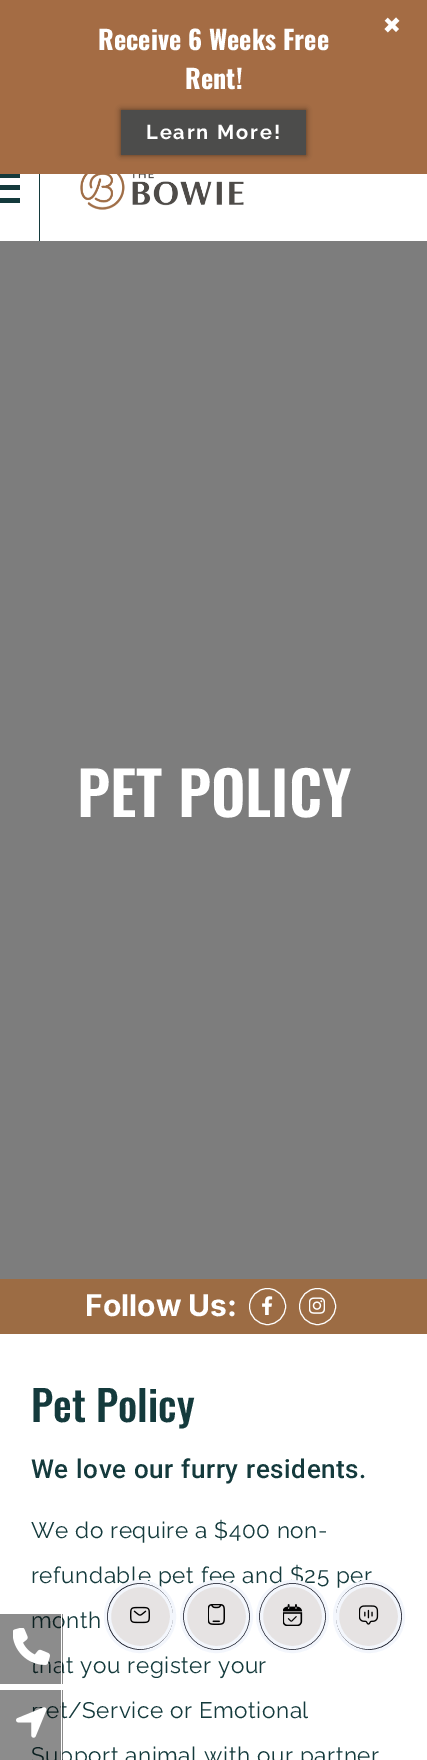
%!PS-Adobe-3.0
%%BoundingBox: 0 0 427 1760
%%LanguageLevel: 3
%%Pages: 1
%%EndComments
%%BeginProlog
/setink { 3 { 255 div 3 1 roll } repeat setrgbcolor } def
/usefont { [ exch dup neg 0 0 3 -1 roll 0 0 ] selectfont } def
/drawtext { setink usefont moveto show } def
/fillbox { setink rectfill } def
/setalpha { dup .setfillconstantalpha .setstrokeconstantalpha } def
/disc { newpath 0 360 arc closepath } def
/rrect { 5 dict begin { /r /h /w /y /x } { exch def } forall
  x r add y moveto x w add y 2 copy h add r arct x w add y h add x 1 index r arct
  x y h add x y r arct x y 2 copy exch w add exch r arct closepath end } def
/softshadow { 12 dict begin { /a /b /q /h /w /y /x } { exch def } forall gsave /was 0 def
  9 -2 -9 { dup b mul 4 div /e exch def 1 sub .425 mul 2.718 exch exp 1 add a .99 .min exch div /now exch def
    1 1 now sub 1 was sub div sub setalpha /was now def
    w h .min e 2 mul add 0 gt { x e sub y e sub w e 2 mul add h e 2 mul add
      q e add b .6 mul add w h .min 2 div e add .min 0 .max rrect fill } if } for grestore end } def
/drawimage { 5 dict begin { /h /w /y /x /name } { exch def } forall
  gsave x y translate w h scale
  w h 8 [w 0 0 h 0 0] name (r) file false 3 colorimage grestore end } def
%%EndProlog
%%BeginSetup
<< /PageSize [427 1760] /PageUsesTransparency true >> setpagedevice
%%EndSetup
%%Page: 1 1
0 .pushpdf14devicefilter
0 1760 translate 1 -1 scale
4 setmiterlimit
0 0 427 1760 255 255 255 fillbox
0 0 427 174 164 108 68 fillbox
/Raleway-SemiBold 50 usefont
255 255 255 setink
gsave 372 30 translate 45 rotate 0 0 moveto (+) show grestore
(Receive 6 Weeks Free) 98 50 /Oswald-Bold 26.25 255 255 255 drawtext
(Rent!) 185 89 /Oswald-Bold 26.25 255 255 255 drawtext
0 0 0 setink
121 110 185 45 0 3 0.5 softshadow
121 110 185 45 76 76 75 fillbox
/Raleway-Bold 20 usefont
255 255 255 setink
146 139 moveto 1.9 0 (Learn More!) ashow
39 174 1 67 20 58 60 fillbox
0 174 20 4 20 58 60 fillbox
0 185 20 5 20 58 60 fillbox
0 198 20 5 20 58 60 fillbox
(assets/img1.rgb) 80 174 164 36 drawimage
0 241 427 1038 125 125 125 fillbox
(PET POLICY) 77 817 /Oswald-SemiBold 60 255 255 255 drawtext
0 1279 427 55 156 108 68 fillbox
(Follow Us:) 85 1316 /Inter-Bold 30 255 255 255 drawtext
267.5 1306.5 18 disc stroke
(assets/img2.rgb) 262 1296 11 19 drawimage
317.5 1306.5 18 disc stroke
(assets/img3.rgb) 309 1297 16 17 drawimage
(Pet Policy) 31 1422 /Oswald-Medium 42 20 58 60 drawtext
/Roboto-Medium 26 usefont
31 1478 moveto 0.6 0 (We love our furry residents.) ashow
/Raleway-Regular 22.5 usefont
31 1538 moveto 0.6 0 (We do require a $400 non-) ashow
31 1583 moveto 0.6 0 (refundable pet fee and $25 per) ashow
31 1628 moveto 0.6 0 (month) ashow
31 1673 moveto 0.6 0 (that you register your) ashow
46 1718 moveto 0.6 0 (et/Service or Emotional) ashow
31 1763 moveto 0.6 0 (Support animal with our partner) ashow
0.45 setalpha
0 1614 63 70 0 0 0 fillbox
1 setalpha
61 1614 1 70 255 255 255 fillbox
(assets/img4.rgb) 13 1628 37 37 drawimage
0.45 setalpha
0 1690 63 70 0 0 0 fillbox
1 setalpha
61 1690 1 70 255 255 255 fillbox
(assets/img5.rgb) 16 1707 31 31 drawimage
6 9 23 setink
105.5 1581.5 69 70 34.5 rrect gsave fill grestore
243 246 252 setink
3 setlinewidth
stroke
230 227 227 setink
140.5 1616.5 31 disc gsave fill grestore
243 246 252 setink
stroke
(assets/img6.rgb) 130 1606 20 18 drawimage
6 9 23 setink
216.5 1616.5 35 disc gsave fill grestore
243 246 252 setink
stroke
230 227 227 setink
216.5 1616.5 31 disc gsave fill grestore
243 246 252 setink
stroke
(assets/img7.rgb) 208 1604 17 21 drawimage
6 9 23 setink
292.5 1616.5 35 disc gsave fill grestore
243 246 252 setink
stroke
230 227 227 setink
292.5 1616.5 31 disc gsave fill grestore
243 246 252 setink
stroke
(assets/img8.rgb) 283 1604 20 22 drawimage
6 9 23 setink
334.5 1581.5 69 70 34.5 rrect gsave fill grestore
243 246 252 setink
stroke
230 227 227 setink
368.5 1616.5 31 disc gsave fill grestore
243 246 252 setink
stroke
(assets/img9.rgb) 359 1605 20 20 drawimage
.poppdf14devicefilter showpage
%%EOF
